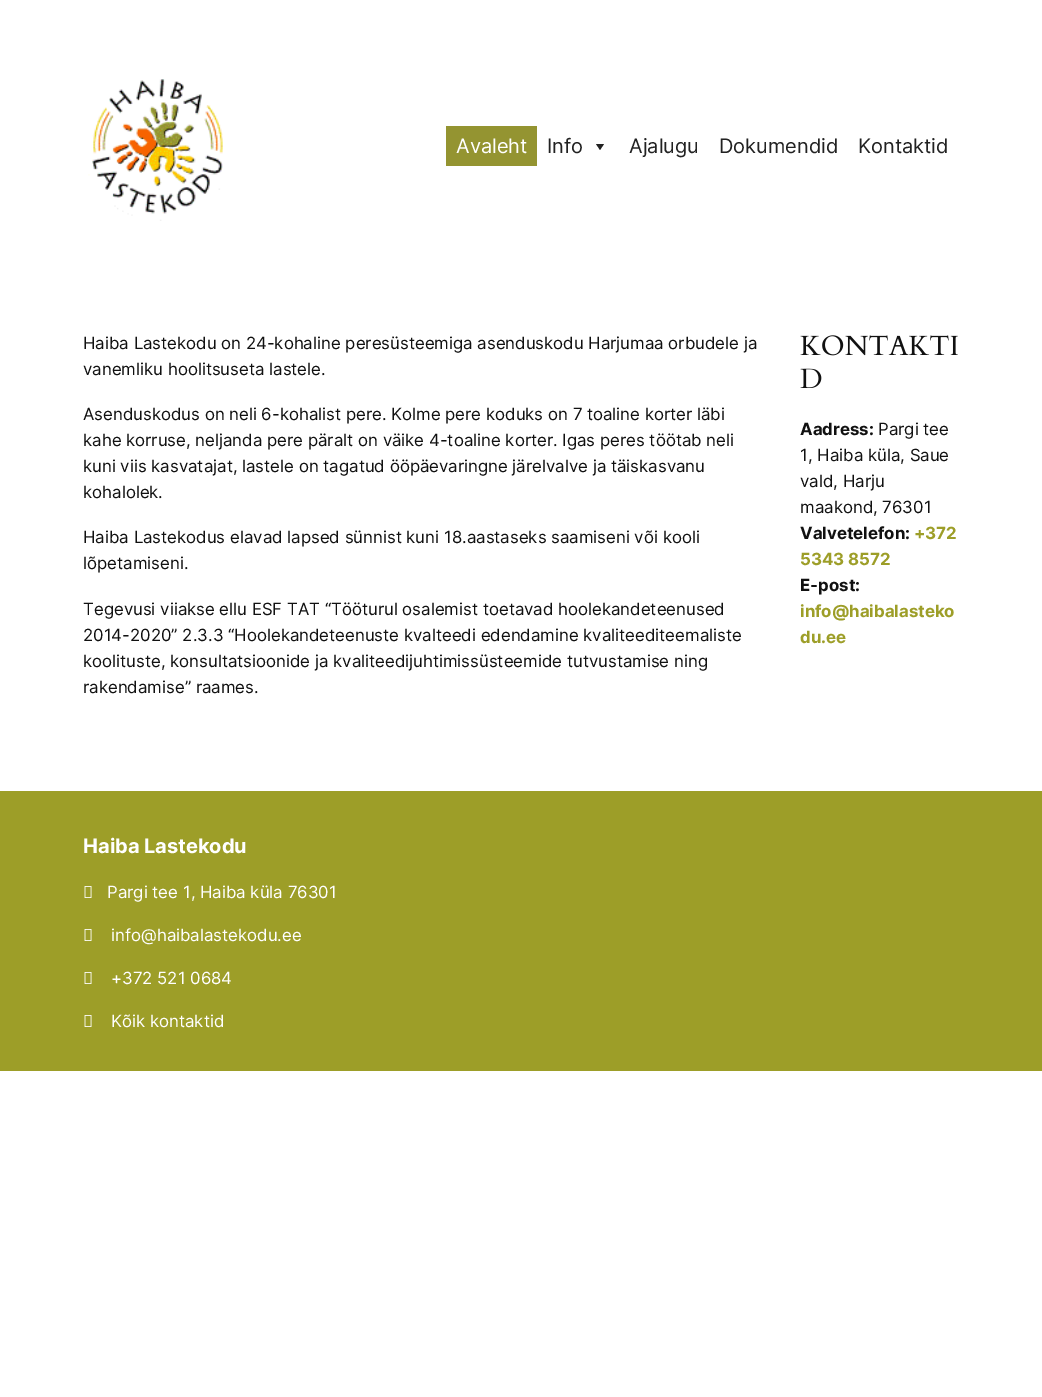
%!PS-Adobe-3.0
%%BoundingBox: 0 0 1042 1397
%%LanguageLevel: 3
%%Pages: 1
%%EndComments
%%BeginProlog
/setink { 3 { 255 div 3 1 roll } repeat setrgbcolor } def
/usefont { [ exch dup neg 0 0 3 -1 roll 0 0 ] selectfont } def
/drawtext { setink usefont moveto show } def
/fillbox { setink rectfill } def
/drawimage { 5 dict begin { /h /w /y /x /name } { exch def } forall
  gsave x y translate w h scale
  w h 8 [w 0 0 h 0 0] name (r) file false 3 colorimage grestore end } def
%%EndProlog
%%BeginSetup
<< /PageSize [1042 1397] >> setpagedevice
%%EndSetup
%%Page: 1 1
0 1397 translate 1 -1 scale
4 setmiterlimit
0 0 1042 1397 255 255 255 fillbox
(assets/img1.rgb) 88 79 135 142 drawimage
446 126 91 40 148 148 49 fillbox
(Avaleht) 456 153 /Inter-Regular 20 255 255 255 drawtext
(Info) 547 153 /Inter-Regular 20 34 34 34 drawtext
604 144 moveto 600 150 lineto 596 144 lineto closepath fill
(Ajalugu) 629 153 /Inter-Regular 20 34 34 34 drawtext
(Dokumendid) 719 153 /Inter-Regular 20 34 34 34 drawtext
(Kontaktid) 858 153 /Inter-Regular 20 34 34 34 drawtext
(Haiba Lastekodu on 24-kohaline peresüsteemiga asenduskodu Harjumaa orbudele ja) 83 349 /Inter-Regular 16.8 17 17 17 drawtext
(vanemliku hoolitsuseta lastele.) 83 375 /Inter-Regular 16.8 17 17 17 drawtext
(Asenduskodus on neli 6-kohalist pere. Kolme pere koduks on 7 toaline korter läbi) 83 420 /Inter-Regular 16.8 17 17 17 drawtext
(kahe korruse, neljanda pere päralt on väike 4-toaline korter. Igas peres töötab neli) 83 446 /Inter-Regular 16.8 17 17 17 drawtext
(kuni viis kasvatajat, lastele on tagatud ööpäevaringne järelvalve ja täiskasvanu) 83 472 /Inter-Regular 16.8 17 17 17 drawtext
(kohalolek.) 83 498 /Inter-Regular 16.8 17 17 17 drawtext
(Haiba Lastekodus elavad lapsed sünnist kuni 18.aastaseks saamiseni või kooli) 83 543 /Inter-Regular 16.8 17 17 17 drawtext
(lõpetamiseni.) 83 569 /Inter-Regular 16.8 17 17 17 drawtext
(Tegevusi viiakse ellu ESF TAT “Tööturul osalemist toetavad hoolekandeteenused) 83 615 /Inter-Regular 16.8 17 17 17 drawtext
(2014-2020” 2.3.3 “Hoolekandeteenuste kvalteedi edendamine kvaliteediteemaliste) 83 641 /Inter-Regular 16.8 17 17 17 drawtext
(koolituste, konsultatsioonide ja kvaliteedijuhtimissüsteemide tutvustamise ning) 83 667 /Inter-Regular 16.8 17 17 17 drawtext
(rakendamise” raames.) 83 693 /Inter-Regular 16.8 17 17 17 drawtext
(assets/img2.rgb) 800 335 158 21 drawimage
(assets/img3.rgb) 800 368 22 20 drawimage
(Aadress:) 800 435 /Inter-Bold 16.8 17 17 17 drawtext
(Pargi tee) 878 435 /Inter-Regular 16.8 17 17 17 drawtext
(1, Haiba küla, Saue) 800 461 /Inter-Regular 16.8 17 17 17 drawtext
(vald, Harju) 800 487 /Inter-Regular 16.8 17 17 17 drawtext
(maakond, 76301) 800 513 /Inter-Regular 16.8 17 17 17 drawtext
(Valvetelefon:) 800 539 /Inter-Bold 16.8 17 17 17 drawtext
(+372) 914 539 /Inter-Bold 16.8 157 158 40 drawtext
(5343 8572) 800 565 /Inter-Bold 16.8 157 158 40 drawtext
(E-post:) 800 591 /Inter-Bold 16.8 17 17 17 drawtext
(info@haibalasteko) 800 617 /Inter-Bold 16.8 157 158 40 drawtext
(du.ee) 800 643 /Inter-Bold 16.8 157 158 40 drawtext
0 791 1042 280 157 158 40 fillbox
(Haiba Lastekodu) 83 853 /Inter-Bold 20 255 255 255 drawtext
(assets/img4.rgb) 84 886 8 12 drawimage
(Pargi tee 1, Haiba küla 76301) 107 898 /Inter-Regular 16.8 255 255 255 drawtext
(assets/img4.rgb) 84 929 8 12 drawimage
(info@haibalastekodu.ee) 111 941 /Inter-Regular 16.8 255 255 255 drawtext
(assets/img4.rgb) 84 972 8 12 drawimage
(+372 521 0684) 111 984 /Inter-Regular 16.8 255 255 255 drawtext
(assets/img4.rgb) 84 1015 8 12 drawimage
(Kõik kontaktid) 111 1027 /Inter-Regular 16.8 255 255 255 drawtext
showpage
%%EOF
